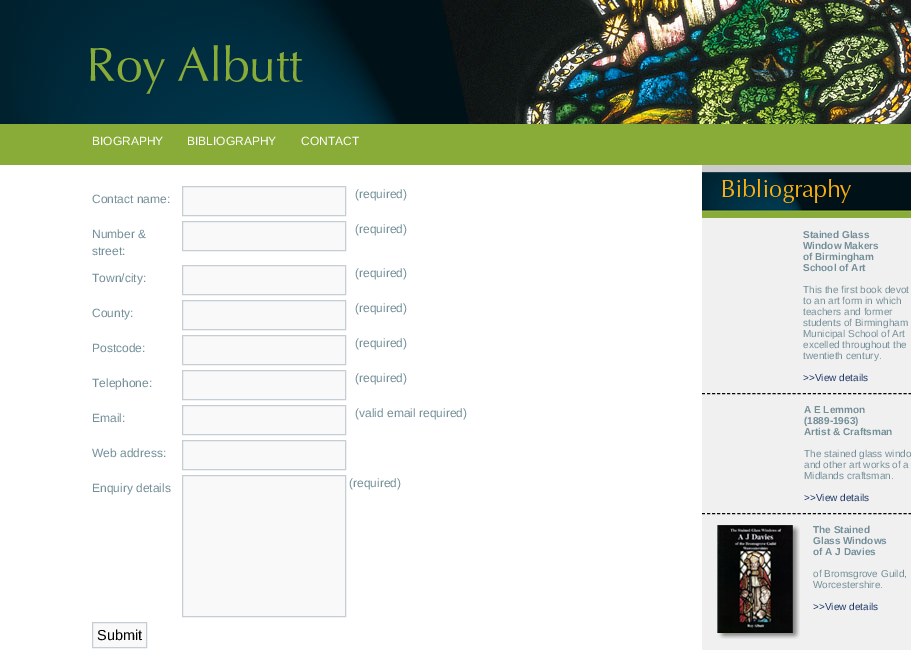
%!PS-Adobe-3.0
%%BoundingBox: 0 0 911 650
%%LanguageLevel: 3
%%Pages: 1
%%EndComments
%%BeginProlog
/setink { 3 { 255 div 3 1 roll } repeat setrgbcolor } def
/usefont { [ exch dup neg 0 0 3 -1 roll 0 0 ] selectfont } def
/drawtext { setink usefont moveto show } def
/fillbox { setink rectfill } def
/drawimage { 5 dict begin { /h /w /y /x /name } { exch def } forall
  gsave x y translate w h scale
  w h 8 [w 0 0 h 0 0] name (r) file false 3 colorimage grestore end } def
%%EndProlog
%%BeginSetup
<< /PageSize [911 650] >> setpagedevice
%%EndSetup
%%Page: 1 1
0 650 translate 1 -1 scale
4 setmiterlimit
0 0 911 650 255 255 255 fillbox
(assets/img1.rgb) 0 0 911 124 drawimage
(assets/img2.rgb) 90 45 213 49 drawimage
0 124 911 41 137 171 56 fillbox
(BIOGRAPHY) 92 145 /LiberationSans-Regular 12 255 255 255 drawtext
(BIBLIOGRAPHY) 187 145 /LiberationSans-Regular 12 255 255 255 drawtext
(CONTACT) 301 145 /LiberationSans-Regular 12 255 255 255 drawtext
(Contact name:) 92 203 /LiberationSans-Regular 12 115 143 153 drawtext
249 249 249 setink
182.5 186.5 moveto 345.5 186.5 lineto 345.5 215.5 lineto 182.5 215.5 lineto closepath gsave fill grestore
197 206 212 setink
stroke
(\(required\)) 355 198 /LiberationSans-Regular 12 115 143 153 drawtext
(Number &) 92 238 /LiberationSans-Regular 12 115 143 153 drawtext
(street:) 92 255 /LiberationSans-Regular 12 115 143 153 drawtext
249 249 249 setink
182.5 221.5 moveto 345.5 221.5 lineto 345.5 250.5 lineto 182.5 250.5 lineto closepath gsave fill grestore
197 206 212 setink
stroke
(\(required\)) 355 233 /LiberationSans-Regular 12 115 143 153 drawtext
(Town/city:) 92 282 /LiberationSans-Regular 12 115 143 153 drawtext
249 249 249 setink
182.5 265.5 moveto 345.5 265.5 lineto 345.5 294.5 lineto 182.5 294.5 lineto closepath gsave fill grestore
197 206 212 setink
stroke
(\(required\)) 355 277 /LiberationSans-Regular 12 115 143 153 drawtext
(County:) 92 317 /LiberationSans-Regular 12 115 143 153 drawtext
249 249 249 setink
182.5 300.5 moveto 345.5 300.5 lineto 345.5 329.5 lineto 182.5 329.5 lineto closepath gsave fill grestore
197 206 212 setink
stroke
(\(required\)) 355 312 /LiberationSans-Regular 12 115 143 153 drawtext
(Postcode:) 92 352 /LiberationSans-Regular 12 115 143 153 drawtext
249 249 249 setink
182.5 335.5 moveto 345.5 335.5 lineto 345.5 364.5 lineto 182.5 364.5 lineto closepath gsave fill grestore
197 206 212 setink
stroke
(\(required\)) 355 347 /LiberationSans-Regular 12 115 143 153 drawtext
(Telephone:) 92 387 /LiberationSans-Regular 12 115 143 153 drawtext
249 249 249 setink
182.5 370.5 moveto 345.5 370.5 lineto 345.5 399.5 lineto 182.5 399.5 lineto closepath gsave fill grestore
197 206 212 setink
stroke
(\(required\)) 355 382 /LiberationSans-Regular 12 115 143 153 drawtext
(Email:) 92 422 /LiberationSans-Regular 12 115 143 153 drawtext
249 249 249 setink
182.5 405.5 moveto 345.5 405.5 lineto 345.5 434.5 lineto 182.5 434.5 lineto closepath gsave fill grestore
197 206 212 setink
stroke
(\(valid email required\)) 355 417 /LiberationSans-Regular 12 115 143 153 drawtext
(Web address:) 92 457 /LiberationSans-Regular 12 115 143 153 drawtext
249 249 249 setink
182.5 440.5 moveto 345.5 440.5 lineto 345.5 469.5 lineto 182.5 469.5 lineto closepath gsave fill grestore
197 206 212 setink
stroke
(Enquiry details) 92 492 /LiberationSans-Regular 12 115 143 153 drawtext
249 249 249 setink
182.5 475.5 moveto 345.5 475.5 lineto 345.5 616.5 lineto 182.5 616.5 lineto closepath gsave fill grestore
197 206 212 setink
stroke
(\(required\)) 349 487 /LiberationSans-Regular 12 115 143 153 drawtext
249 249 249 setink
92.5 622.5 moveto 146.5 622.5 lineto 146.5 647.5 lineto 92.5 647.5 lineto closepath gsave fill grestore
197 206 212 setink
stroke
(Submit) 97 640 /LiberationSans-Regular 14.5 0 0 0 drawtext
702 218 209 432 240 240 240 fillbox
702 165 209 5 204 204 204 fillbox
(assets/img3.rgb) 702 170 209 48 drawimage
7 6 7 setink
[3 2.04] 0 setdash
702 393.5 moveto 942 393.5 lineto stroke
(Stained Glass) 803 238 /LiberationSans-Bold 10 115 143 153 drawtext
(Window Makers) 803 249 /LiberationSans-Bold 10 115 143 153 drawtext
(of Birmingham) 803 260 /LiberationSans-Bold 10 115 143 153 drawtext
(School of Art) 803 271 /LiberationSans-Bold 10 115 143 153 drawtext
(This the first book devot) 803 293 /LiberationSans-Regular 10 115 143 153 drawtext
(to an art form in which) 803 304 /LiberationSans-Regular 10 115 143 153 drawtext
(teachers and former) 803 315 /LiberationSans-Regular 10 115 143 153 drawtext
(students of Birmingham) 803 326 /LiberationSans-Regular 10 115 143 153 drawtext
(Municipal School of Art) 803 337 /LiberationSans-Regular 10 115 143 153 drawtext
(excelled throughout the) 803 348 /LiberationSans-Regular 10 115 143 153 drawtext
(twentieth century.) 803 359 /LiberationSans-Regular 10 115 143 153 drawtext
(>>View details) 803 381 /LiberationSans-Regular 10 29 55 102 drawtext
7 6 7 setink
702 513.5 moveto 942 513.5 lineto stroke
(A E Lemmon) 804 413 /LiberationSans-Bold 10 115 143 153 drawtext
(\(1889-1963\)) 804 424 /LiberationSans-Bold 10 115 143 153 drawtext
(Artist & Craftsman) 804 435 /LiberationSans-Bold 10 115 143 153 drawtext
(The stained glass windo) 804 457 /LiberationSans-Regular 10 115 143 153 drawtext
(and other art works of a) 804 468 /LiberationSans-Regular 10 115 143 153 drawtext
(Midlands craftsman.) 804 479 /LiberationSans-Regular 10 115 143 153 drawtext
(>>View details) 804 501 /LiberationSans-Regular 10 29 55 102 drawtext
(assets/img4.rgb) 717 525 83 114 drawimage
(The Stained) 813 533 /LiberationSans-Bold 10 115 143 153 drawtext
(Glass Windows) 813 544 /LiberationSans-Bold 10 115 143 153 drawtext
(of A J Davies) 813 555 /LiberationSans-Bold 10 115 143 153 drawtext
(of Bromsgrove Guild,) 813 577 /LiberationSans-Regular 10 115 143 153 drawtext
(Worcestershire.) 813 588 /LiberationSans-Regular 10 115 143 153 drawtext
(>>View details) 813 610 /LiberationSans-Regular 10 29 55 102 drawtext
showpage
%%EOF
